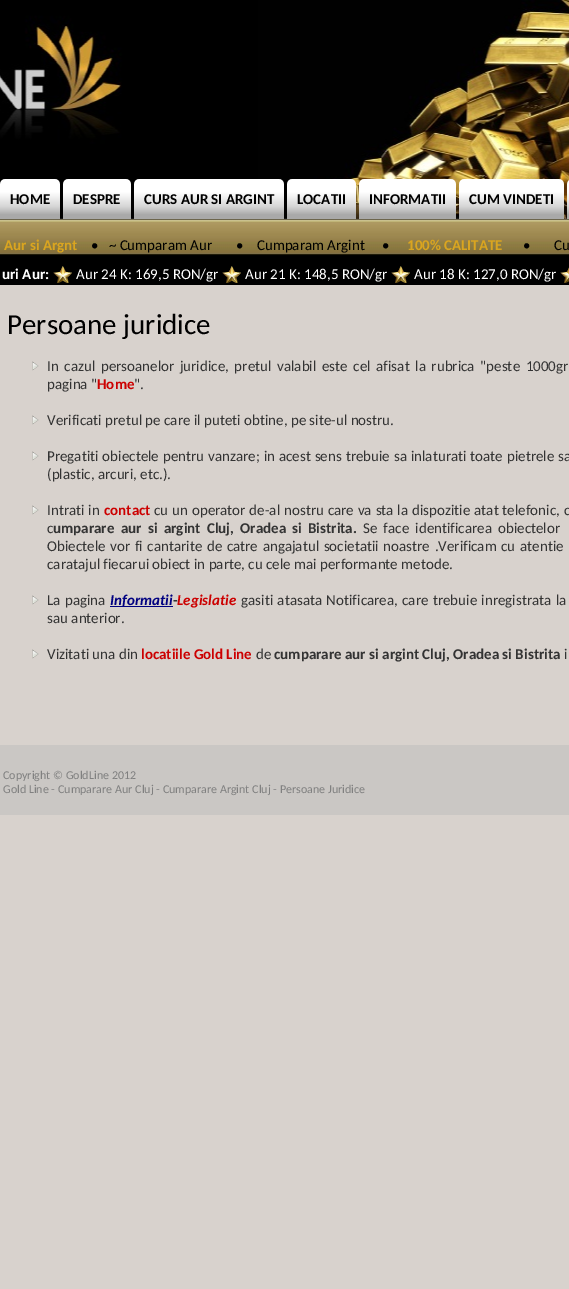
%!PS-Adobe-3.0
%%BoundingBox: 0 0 569 1289
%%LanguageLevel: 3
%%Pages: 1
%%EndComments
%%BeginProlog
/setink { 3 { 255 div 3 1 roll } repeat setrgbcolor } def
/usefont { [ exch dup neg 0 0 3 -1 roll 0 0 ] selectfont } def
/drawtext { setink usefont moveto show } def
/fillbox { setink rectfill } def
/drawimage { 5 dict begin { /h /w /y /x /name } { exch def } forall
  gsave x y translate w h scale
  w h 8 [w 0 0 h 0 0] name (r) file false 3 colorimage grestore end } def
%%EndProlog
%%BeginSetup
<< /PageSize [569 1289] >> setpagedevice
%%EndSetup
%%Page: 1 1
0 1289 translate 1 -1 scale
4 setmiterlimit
0 0 569 1289 216 210 205 fillbox
(assets/img1.rgb) 0 219 569 66 drawimage
(assets/img2.rgb) 0 0 569 219 drawimage
(assets/img3.rgb) 0 179 60 40 drawimage
(HOME) 10 204 /Carlito-Bold 15 0 0 0 drawtext
(assets/img4.rgb) 63 179 68 40 drawimage
(DESPRE) 73 204 /Carlito-Bold 15 0 0 0 drawtext
(assets/img5.rgb) 134 179 150 40 drawimage
(CURS AUR SI ARGINT) 144 204 /Carlito-Bold 15 0 0 0 drawtext
(assets/img6.rgb) 287 179 69 40 drawimage
(LOCATII) 297 204 /Carlito-Bold 15 0 0 0 drawtext
(assets/img7.rgb) 359 179 97 40 drawimage
(INFORMATII) 369 204 /Carlito-Bold 15 0 0 0 drawtext
(assets/img8.rgb) 459 179 105 40 drawimage
(CUM VINDETI) 469 204 /Carlito-Bold 15 0 0 0 drawtext
(assets/img9.rgb) 567 180 2 39 drawimage
(Aur si Argnt) 4 250 /Carlito-Bold 15 218 165 32 drawtext
(•   ~ Cumparam Aur       •    Cumparam Argint) 91 250 /Carlito-Regular 15 0 0 0 drawtext
(•) 382 250 /Carlito-Regular 15 0 0 0 drawtext
(100% CALITATE) 407 250 /Carlito-Bold 15 218 165 32 drawtext
(•       Cu) 523 250 /Carlito-Regular 15 0 0 0 drawtext
(uri Aur:) 2 279 /Carlito-Bold 15 255 255 255 drawtext
(assets/img10.rgb) 53 266 19 17 drawimage
(Aur 24 K: 169,5 RON/gr) 76 279 /Carlito-Regular 15 255 255 255 drawtext
(assets/img10.rgb) 222 266 19 17 drawimage
(Aur 21 K: 148,5 RON/gr) 245 279 /Carlito-Regular 15 255 255 255 drawtext
(assets/img10.rgb) 391 266 19 17 drawimage
(Aur 18 K: 127,0 RON/gr) 414 279 /Carlito-Regular 15 255 255 255 drawtext
(assets/img11.rgb) 560 267 9 16 drawimage
(Persoane juridice) 7 334 /Carlito-Regular 29 0 0 0 drawtext
(assets/img12.rgb) 32 361 7 10 drawimage
/Carlito-Regular 15 usefont
51 51 51 setink
47 371 moveto 2.25 0 32 (In cazul persoanelor juridice, pretul valabil este cel afisat la rubrica "peste 1000gr) widthshow
(pagina ") 47 389 /Carlito-Regular 15 51 51 51 drawtext
(Home) 97 389 /Carlito-Bold 15 204 0 0 drawtext
(".) 134 389 /Carlito-Regular 15 51 51 51 drawtext
(assets/img12.rgb) 32 415 7 10 drawimage
(Verificati pretul pe care il puteti obtine, pe site-ul nostru.) 47 425 /Carlito-Regular 15 51 51 51 drawtext
(assets/img12.rgb) 32 451 7 10 drawimage
47 461 moveto 0.5 0 32 (Pregatiti obiectele pentru vanzare; in acest sens trebuie sa inlaturati toate pietrele sa) widthshow
(\(plastic, arcuri, etc.\).) 47 479 /Carlito-Regular 15 51 51 51 drawtext
(assets/img12.rgb) 32 505 7 10 drawimage
47 515 moveto 0.5 0 32 (Intrati in) widthshow
(contact) 104 515 /Carlito-Bold 15 204 0 0 drawtext
/Carlito-Regular 15 usefont
51 51 51 setink
154 515 moveto 0.5 0 32 (cu un operator de-al nostru care va sta la dispozitie atat telefonic, c) widthshow
(c) 47 533 /Carlito-Regular 15 51 51 51 drawtext
(umparare) 53 533 /Carlito-Bold 15 51 51 51 drawtext
121 533 moveto 2.75 0 32 (aur si argint Cluj, Oradea si Bistrita.) widthshow
/Carlito-Regular 15 usefont
363 533 moveto 2.75 0 32 (Se face identificarea obiectelor) widthshow
47 551 moveto 1.25 0 32 (Obiectele vor fi cantarite de catre angajatul societatii noastre .Verificam cu atentie) widthshow
(caratajul fiecarui obiect in parte, cu cele mai performante metode.) 47 569 /Carlito-Regular 15 51 51 51 drawtext
(assets/img12.rgb) 32 595 7 10 drawimage
47 605 moveto 1 0 32 (La pagina) widthshow
110 606 63 1 0 0 128 fillbox
(Informatii) 110 605 /Carlito-BoldItalic 15 0 0 128 drawtext
(-) 173 605 /Carlito-Bold 15 51 51 51 drawtext
(Legislatie) 177 605 /Carlito-BoldItalic 15 204 0 0 drawtext
/Carlito-Regular 15 usefont
51 51 51 setink
241 605 moveto 1 0 32 (gasiti atasata Notificarea, care trebuie inregistrata la) widthshow
(sau anterior.) 47 623 /Carlito-Regular 15 51 51 51 drawtext
(assets/img12.rgb) 32 649 7 10 drawimage
(Vizitati una din) 47 659 /Carlito-Regular 15 51 51 51 drawtext
(locatiile Gold Line) 141 659 /Carlito-Bold 15 204 0 0 drawtext
(de) 256 659 /Carlito-Regular 15 51 51 51 drawtext
(cumparare aur si argint Cluj, Oradea si Bistrita) 274 659 /Carlito-Bold 15 51 51 51 drawtext
(i) 564 659 /Carlito-Regular 15 51 51 51 drawtext
0 745 569 70 202 199 196 fillbox
(Copyright © GoldLine 2012) 3 779 /Carlito-Regular 12 128 128 128 drawtext
(Gold Line - Cumparare Aur Cluj - Cumparare Argint Cluj - Persoane Juridice) 3 793 /Carlito-Regular 12 128 128 128 drawtext
showpage
%%EOF
